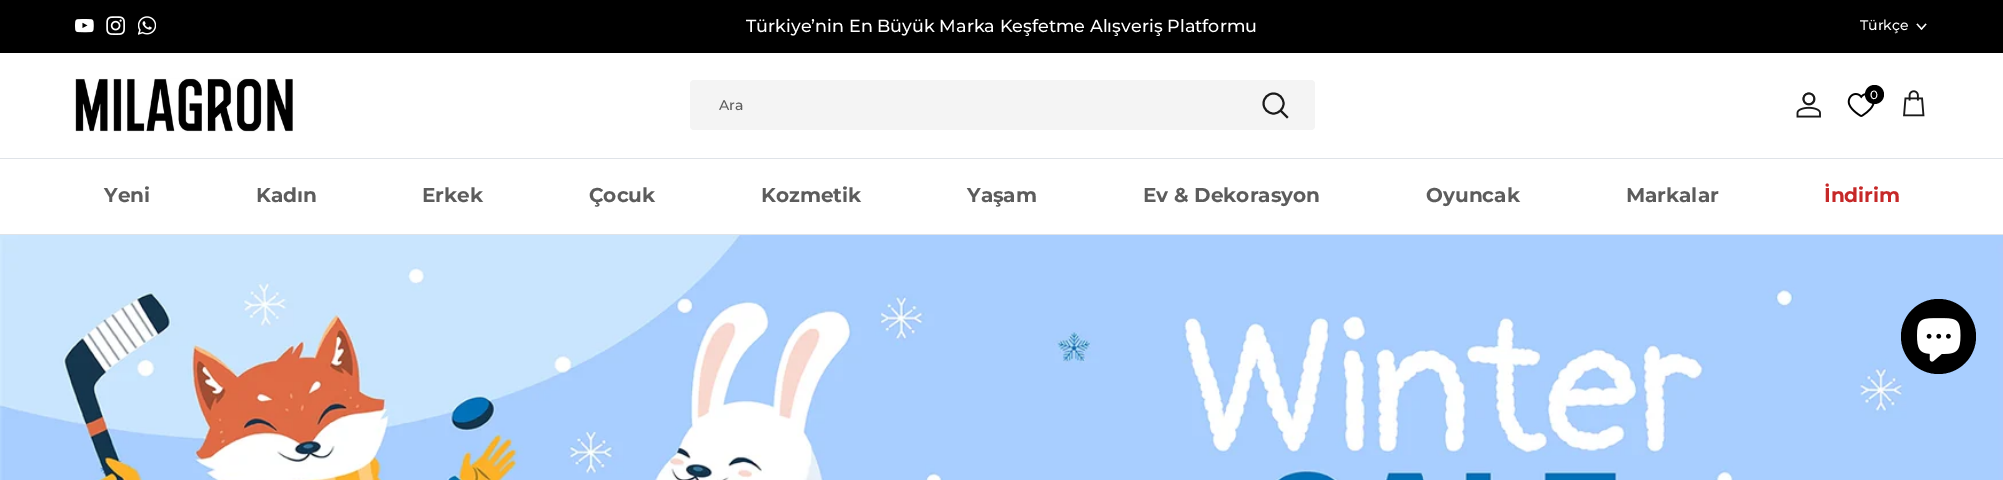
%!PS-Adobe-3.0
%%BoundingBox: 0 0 2003 480
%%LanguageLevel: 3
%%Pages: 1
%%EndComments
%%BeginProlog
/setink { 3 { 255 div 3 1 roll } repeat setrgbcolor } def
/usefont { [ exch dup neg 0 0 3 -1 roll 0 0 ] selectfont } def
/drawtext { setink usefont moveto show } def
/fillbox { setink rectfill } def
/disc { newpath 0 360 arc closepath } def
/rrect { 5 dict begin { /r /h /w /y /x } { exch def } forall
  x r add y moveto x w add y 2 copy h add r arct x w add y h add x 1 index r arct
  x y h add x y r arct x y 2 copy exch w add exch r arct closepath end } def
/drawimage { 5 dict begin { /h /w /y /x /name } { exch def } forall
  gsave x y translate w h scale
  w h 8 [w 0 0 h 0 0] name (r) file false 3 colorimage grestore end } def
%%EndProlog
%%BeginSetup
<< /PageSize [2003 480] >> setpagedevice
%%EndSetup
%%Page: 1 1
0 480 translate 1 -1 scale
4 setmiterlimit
0 0 2003 480 255 255 255 fillbox
0 0 2003 53 0 0 0 fillbox
(assets/img1.rgb) 75 19 19 14 drawimage
(assets/img2.rgb) 106 16 19 19 drawimage
(assets/img3.rgb) 138 16 18 19 drawimage
(Türkiye’nin En Büyük Marka Keşfetme Alışveriş Platformu) 746 32 /Montserrat-Medium 17.5 255 255 255 drawtext
(Türkçe) 1860 30 /Montserrat-Medium 14 255 255 255 drawtext
1.2 setlinewidth
1926 24 moveto 1921.5 29 lineto 1917 24 lineto stroke
(assets/img4.rgb) 75 78 218 54 drawimage
(assets/img5.rgb) 1796 92 25 26 drawimage
(assets/img6.rgb) 1847 93 28 24 drawimage
0 0 0 setink
1874.5 94.5 9.5 disc fill
(0) 1870 99 /Montserrat-Medium 12 255 255 255 drawtext
(assets/img7.rgb) 1903 90 22 27 drawimage
244 244 244 setink
690 80 625 50 4 rrect fill
(Ara) 719 110 /Montserrat-Medium 14 92 92 92 drawtext
26 26 26 setink
1.9 setlinewidth
1273.5 103.5 10 disc stroke
2 setlinecap
1281 111 moveto 1287 117 lineto stroke
0 234 2003 1 223 227 232 fillbox
0 158 2003 1 223 227 232 fillbox
(Yeni) 104 202 /Montserrat-Bold 20 92 92 92 drawtext
(Kadın) 256 202 /Montserrat-Bold 20 92 92 92 drawtext
(Erkek) 422 202 /Montserrat-Bold 20 92 92 92 drawtext
(Çocuk) 589 202 /Montserrat-Bold 20 92 92 92 drawtext
(Kozmetik) 761 202 /Montserrat-Bold 20 92 92 92 drawtext
(Yaşam) 967 202 /Montserrat-Bold 20 92 92 92 drawtext
(Ev & Dekorasyon) 1143 202 /Montserrat-Bold 20 92 92 92 drawtext
(Oyuncak) 1426 202 /Montserrat-Bold 20 92 92 92 drawtext
(Markalar) 1626 202 /Montserrat-Bold 20 92 92 92 drawtext
(İndirim) 1824 202 /Montserrat-Bold 20 198 40 40 drawtext
(assets/img8.rgb) 0 235 2003 245 drawimage
0 0 0 setink
1938.5 336.5 37.5 disc fill
(assets/img9.rgb) 1917 318 44 44 drawimage
showpage
%%EOF
